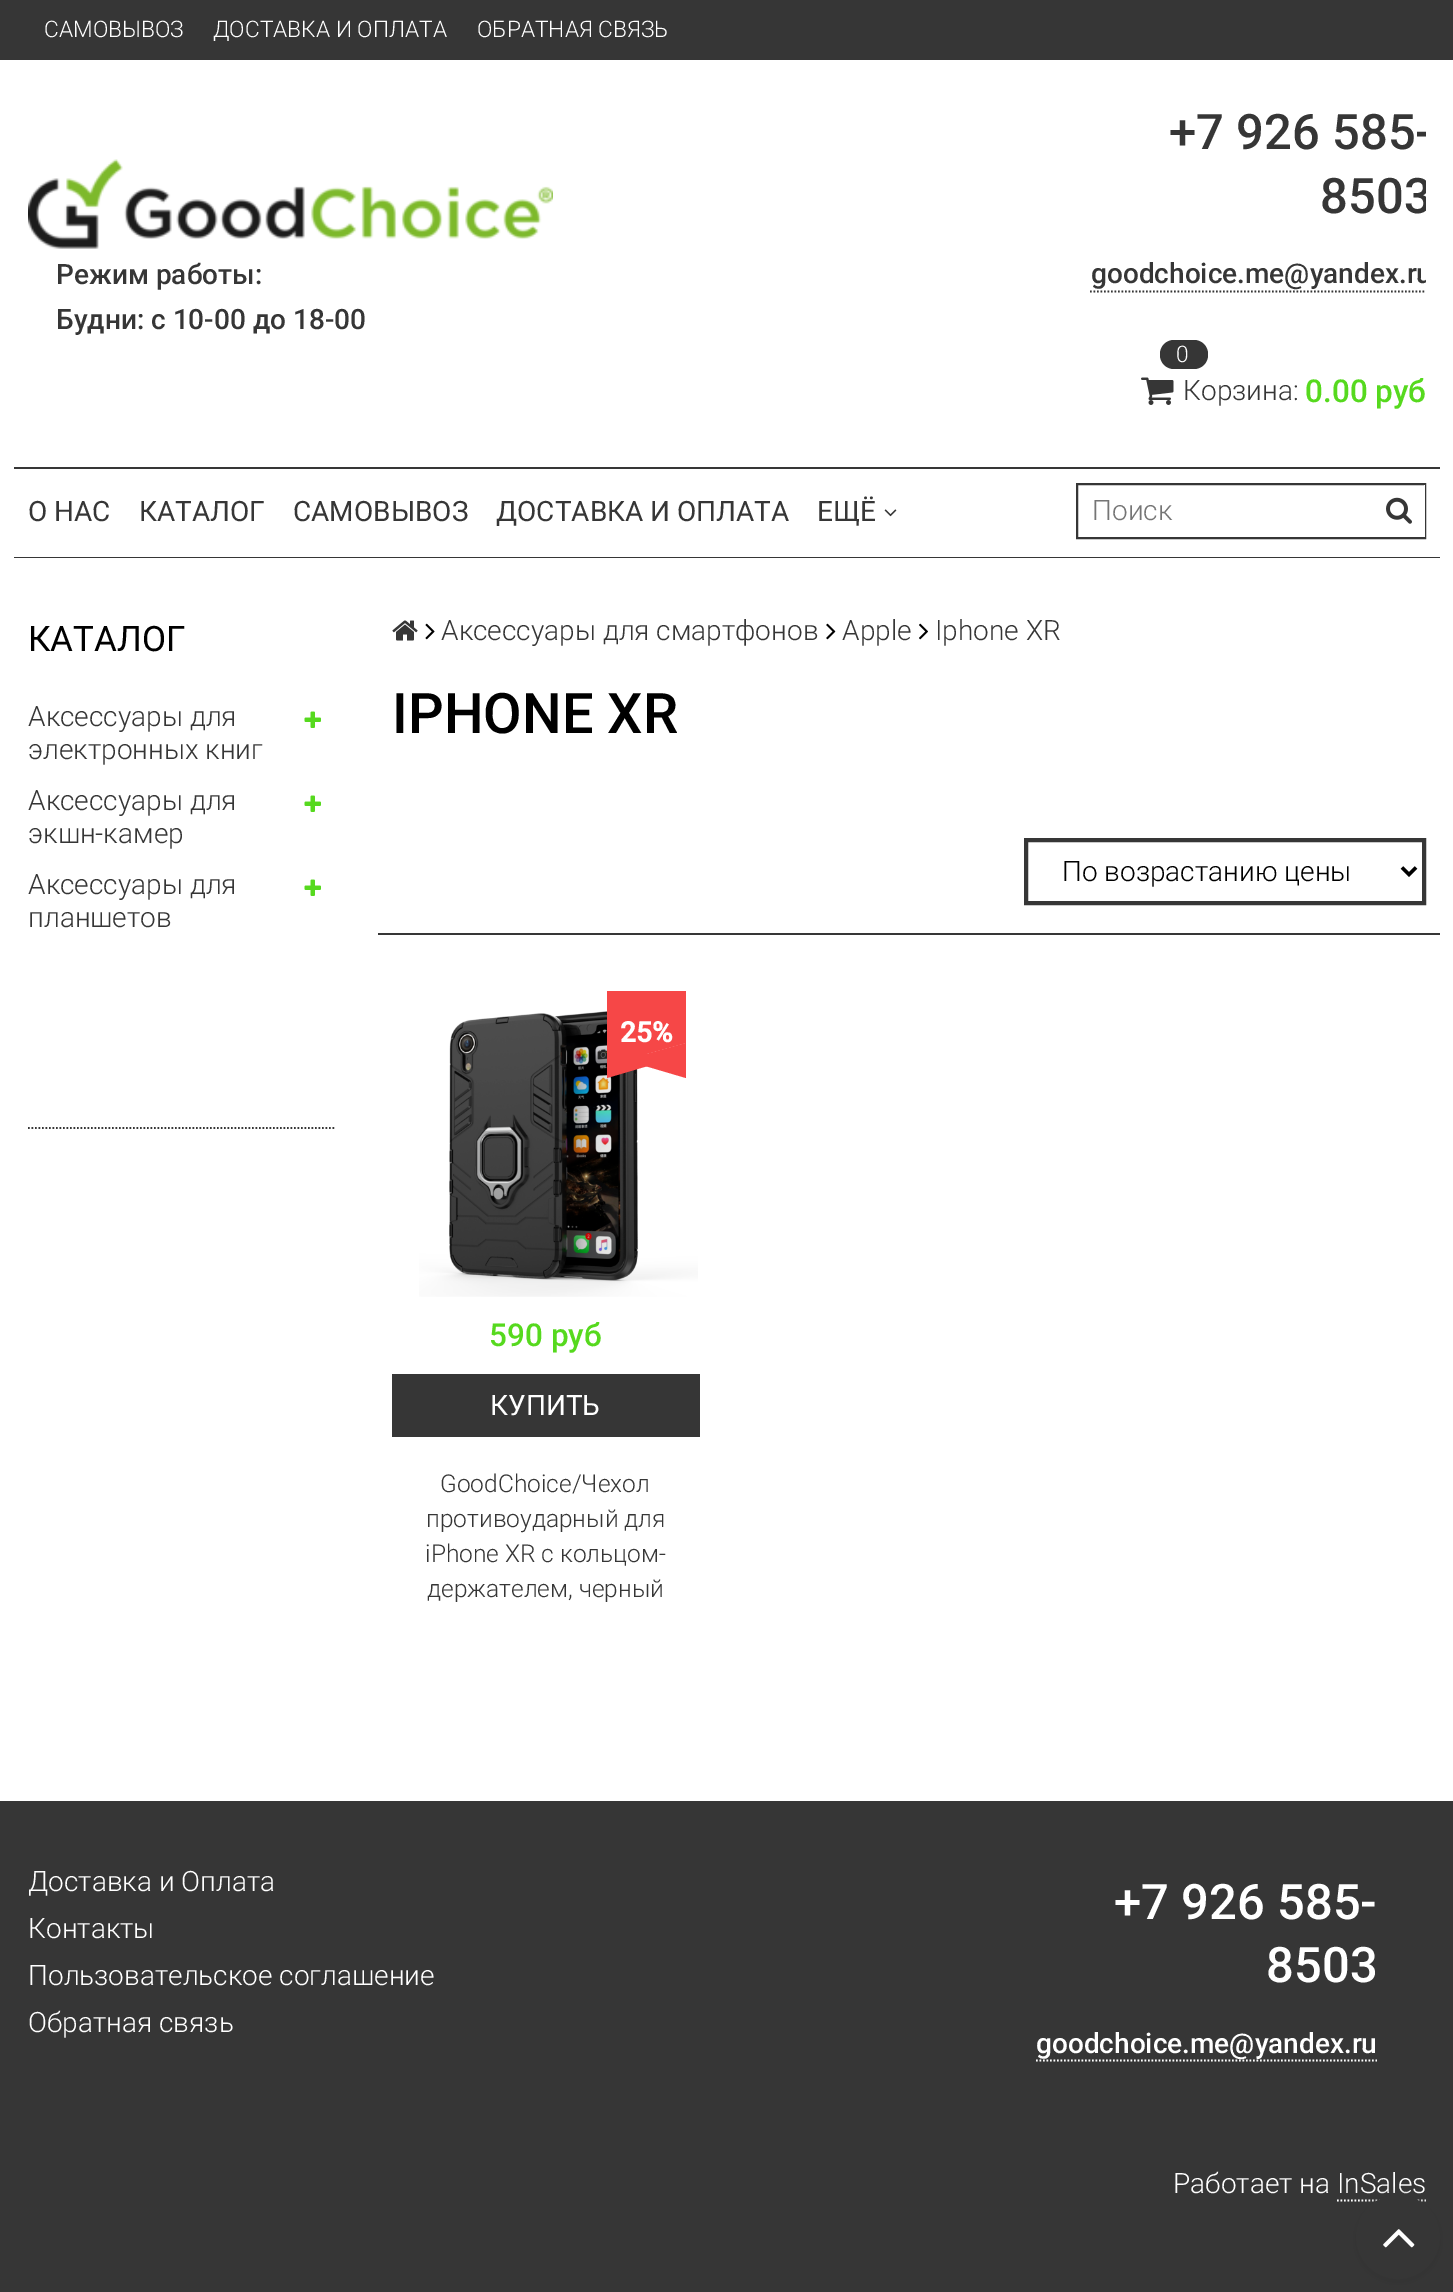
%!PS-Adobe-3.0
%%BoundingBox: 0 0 1453 2292
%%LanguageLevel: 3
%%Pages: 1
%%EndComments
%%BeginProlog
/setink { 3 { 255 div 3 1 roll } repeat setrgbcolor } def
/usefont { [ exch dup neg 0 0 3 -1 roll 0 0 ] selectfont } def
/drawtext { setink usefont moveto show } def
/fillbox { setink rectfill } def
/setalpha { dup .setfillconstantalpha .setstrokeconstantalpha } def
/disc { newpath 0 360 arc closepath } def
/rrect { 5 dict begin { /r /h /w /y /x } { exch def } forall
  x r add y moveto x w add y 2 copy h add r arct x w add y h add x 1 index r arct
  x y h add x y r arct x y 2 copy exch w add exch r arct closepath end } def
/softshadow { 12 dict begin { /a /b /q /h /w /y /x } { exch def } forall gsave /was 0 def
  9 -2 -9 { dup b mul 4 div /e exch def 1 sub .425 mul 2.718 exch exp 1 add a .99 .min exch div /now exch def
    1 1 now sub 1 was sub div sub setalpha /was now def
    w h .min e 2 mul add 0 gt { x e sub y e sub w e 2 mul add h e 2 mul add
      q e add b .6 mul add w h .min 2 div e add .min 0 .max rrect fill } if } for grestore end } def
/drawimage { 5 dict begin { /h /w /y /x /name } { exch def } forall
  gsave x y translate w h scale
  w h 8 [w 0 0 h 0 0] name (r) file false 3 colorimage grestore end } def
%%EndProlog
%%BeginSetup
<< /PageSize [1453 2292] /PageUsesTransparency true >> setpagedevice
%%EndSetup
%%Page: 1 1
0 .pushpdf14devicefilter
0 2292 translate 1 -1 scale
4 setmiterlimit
0 0 1453 2292 54 54 54 fillbox
0 60 1453 1741 255 255 255 fillbox
(САМОВЫВОЗ) 44 37 /Roboto-Light 22.75 255 255 255 drawtext
(ДОСТАВКА И ОПЛАТА) 213 37 /Roboto-Light 22.75 255 255 255 drawtext
(ОБРАТНАЯ СВЯЗЬ) 477 37 /Roboto-Light 22.75 255 255 255 drawtext
(assets/img1.rgb) 28 159 525 90 drawimage
(Режим работы:) 56 284 /Roboto-Medium 28 54 54 54 drawtext
(Будни: с 10-00 до 18-00) 56 329 /Roboto-Medium 28 54 54 54 drawtext
gsave
1076 88 350 225 rectclip
(+7 926 585-) 1169 149 /Roboto-Medium 49 54 54 54 drawtext
(8503) 1320 213 /Roboto-Medium 49 54 54 54 drawtext
(goodchoice.me@yandex.ru) 1091 283 /Roboto-Medium 28 54 54 54 drawtext
1.8 setlinewidth
[1.75 1.75] 0 setdash
1090 291.5 moveto 1431.5 291.5 lineto stroke
grestore
1160 340 48 29 14 rrect fill
(0) 1176 362 /Roboto-Light 22.75 255 255 255 drawtext
(assets/img2.rgb) 1141 377 33 28 drawimage
(Корзина:) 1183 400 /Roboto-Light 28 54 54 54 drawtext
(0.00 руб) 1305 402 /Roboto-Medium 31.5 86 217 30 drawtext
14 467 1426 2 54 54 54 fillbox
14 557 1426 1 54 54 54 fillbox
(О НАС) 28 521 /Roboto-Regular 28 54 54 54 drawtext
(КАТАЛОГ) 139 521 /Roboto-Regular 28 54 54 54 drawtext
(САМОВЫВОЗ) 293 521 /Roboto-Regular 28 54 54 54 drawtext
(ДОСТАВКА И ОПЛАТА) 496 521 /Roboto-Regular 28 54 54 54 drawtext
(ЕЩЁ) 817 521 /Roboto-Regular 28 54 54 54 drawtext
(assets/img3.rgb) 884 509 13 8 drawimage
2 setlinewidth
1077 484 348 54 rectstroke
(Поиск) 1092 520 /Roboto-Light 28 117 117 117 drawtext
1424 485 1 52 255 255 255 fillbox
(assets/img4.rgb) 1386 497 26 27 drawimage
(КАТАЛОГ) 28 651 /Roboto-Regular 35 0 0 0 drawtext
(Аксессуары для) 28 726 /Roboto-Light 28 54 54 54 drawtext
(электронных книг) 28 759 /Roboto-Light 28 54 54 54 drawtext
(assets/img5.rgb) 304 711 17 17 drawimage
(Аксессуары для) 28 810 /Roboto-Light 28 54 54 54 drawtext
(экшн-камер) 28 843 /Roboto-Light 28 54 54 54 drawtext
(assets/img5.rgb) 304 795 17 17 drawimage
(Аксессуары для) 28 894 /Roboto-Light 28 54 54 54 drawtext
(планшетов) 28 927 /Roboto-Light 28 54 54 54 drawtext
(assets/img5.rgb) 304 879 17 17 drawimage
1.8 setlinewidth
[1.75 1.75] 0 setdash
28 1128 moveto 336 1128 lineto stroke
(assets/img6.rgb) 392 620 26 21 drawimage
(assets/img7.rgb) 425 623 10 17 drawimage
(Аксессуары для смартфонов) 441 640 /Roboto-Light 28 54 54 54 drawtext
(assets/img8.rgb) 826 623 10 17 drawimage
(Apple) 842 640 /Roboto-Light 28 54 54 54 drawtext
(assets/img9.rgb) 919 623 9 17 drawimage
(Iphone XR) 935 640 /Roboto-Light 28 54 54 54 drawtext
(IPHONE XR) 392 733 /Roboto-Medium 56 0 0 0 drawtext
378 933 1062 2 54 54 54 fillbox
4 setlinewidth
[] 0 setdash
1026 840 398 63 rectstroke
0 0 0 setink
3.5 setlinewidth
1402 867.5 moveto 1409 874.5 lineto 1416 867.5 lineto stroke
(По возрастанию цены) 1062 881 /Roboto-Light 28 0 0 0 drawtext
(assets/img10.rgb) 419 1011 279 286 drawimage
607 991 79 52 246 71 71 fillbox
(25%) 620 1042 /Roboto-Bold 28 255 255 255 drawtext
246 71 71 setink
607 1078 moveto 607 1043 lineto 668 1060 lineto closepath fill
607 1043 moveto 686 1043 lineto 625 1060 lineto closepath fill
686 1043 moveto 686 1078 lineto 625 1060 lineto closepath fill
(590 руб) 489 1346 /Roboto-Medium 31.5 86 217 30 drawtext
392 1374 308 63 54 54 54 fillbox
(КУПИТЬ) 490 1415 /Roboto-Regular 28 255 255 255 drawtext
(GoodChoice/Чехол) 440 1492 /Roboto-Light 24.5 54 54 54 drawtext
(противоударный для) 426 1527 /Roboto-Light 24.5 54 54 54 drawtext
(iPhone XR с кольцом-) 425 1562 /Roboto-Light 24.5 54 54 54 drawtext
(держателем, черный) 427 1597 /Roboto-Light 24.5 54 54 54 drawtext
(Доставка и Оплата) 28 1891 /Roboto-Light 28 255 255 255 drawtext
(Контакты) 28 1938 /Roboto-Light 28 255 255 255 drawtext
(Пользовательское соглашение) 28 1985 /Roboto-Light 28 255 255 255 drawtext
(Обратная связь) 28 2032 /Roboto-Light 28 255 255 255 drawtext
(+7 926 585-) 1114 1919 /Roboto-Medium 49 255 255 255 drawtext
(8503) 1266 1982 /Roboto-Medium 49 255 255 255 drawtext
1.8 setlinewidth
[1.75 1.75] 0 setdash
1036 2060.5 moveto 1377 2060.5 lineto stroke
(goodchoice.me@yandex.ru) 1036 2053 /Roboto-Medium 28 255 255 255 drawtext
(Работает на InSales) 1173 2193 /Roboto-Light 28 255 255 255 drawtext
1337 2200.5 moveto 1426 2200.5 lineto stroke
51 51 51 setink
1356 2198 84 84 42 5 1 softshadow
54 54 54 setink
1398 2237 40 disc gsave fill grestore
4 setlinewidth
[] 0 setdash
stroke
(assets/img11.rgb) 1383 2229 32 19 drawimage
.poppdf14devicefilter showpage
%%EOF
